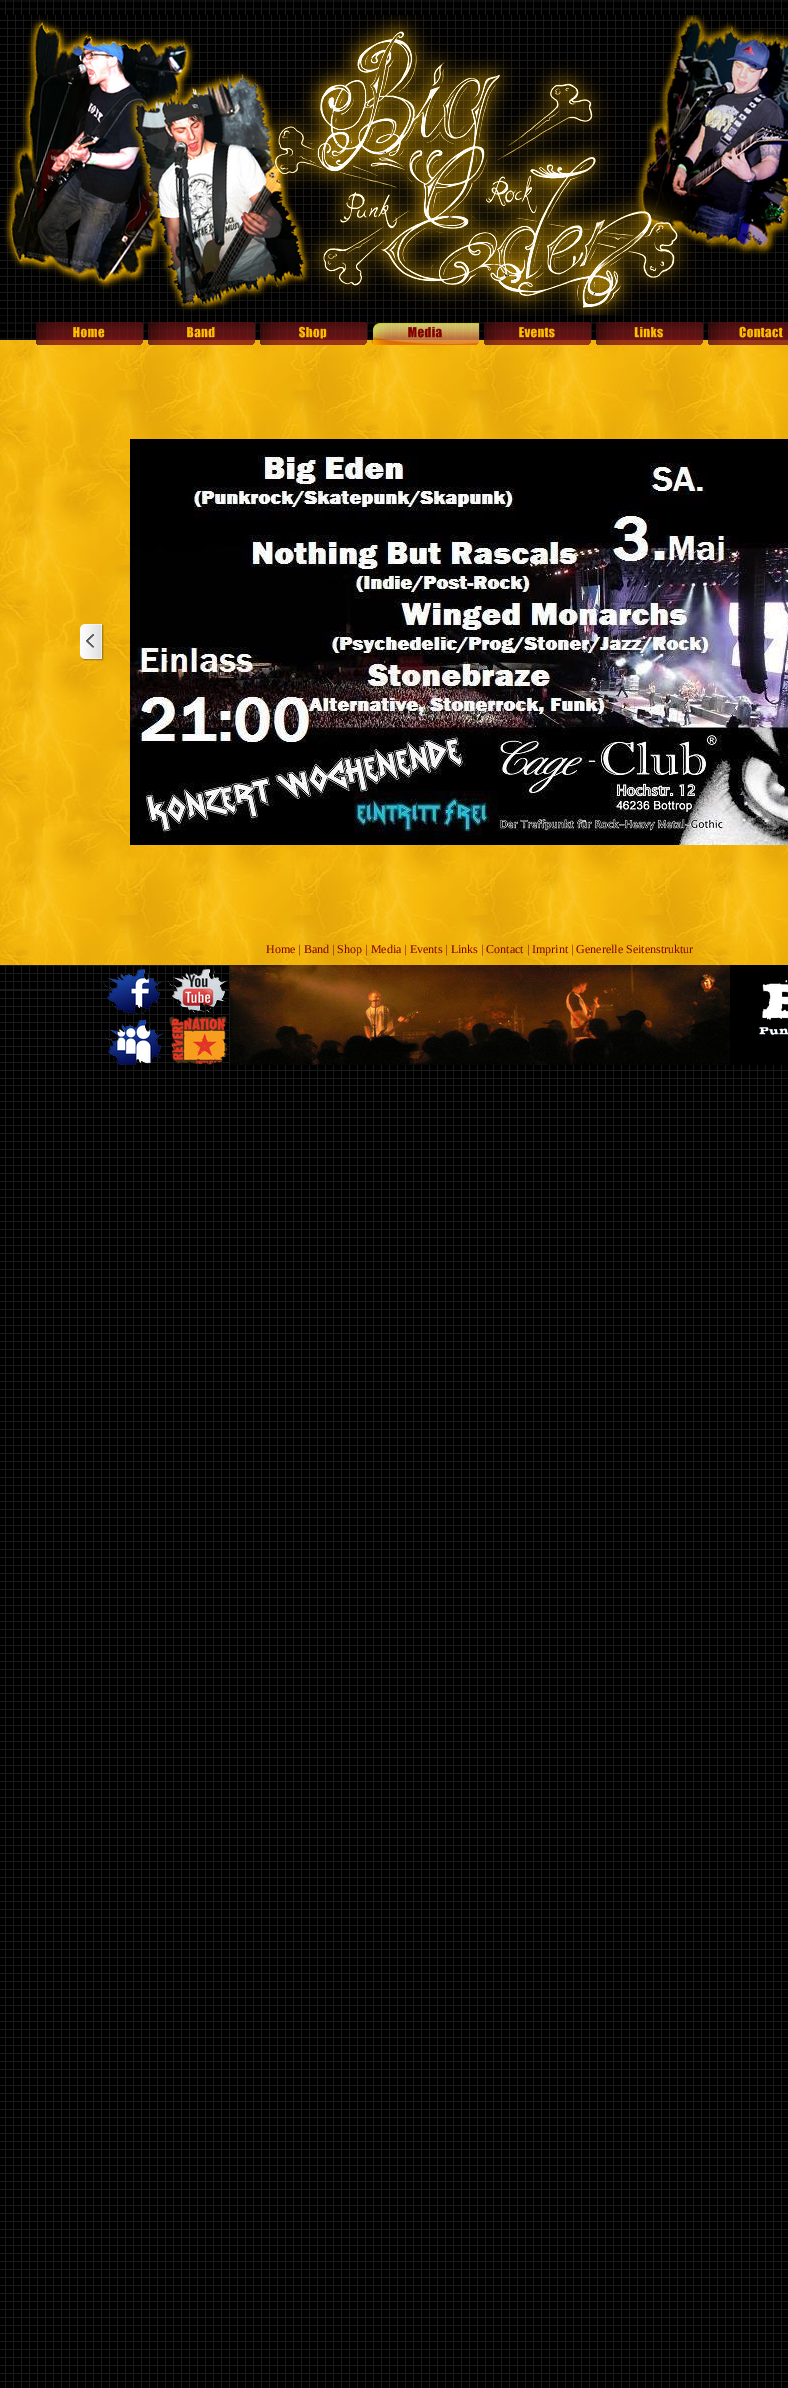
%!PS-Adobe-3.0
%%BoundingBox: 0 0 788 2388
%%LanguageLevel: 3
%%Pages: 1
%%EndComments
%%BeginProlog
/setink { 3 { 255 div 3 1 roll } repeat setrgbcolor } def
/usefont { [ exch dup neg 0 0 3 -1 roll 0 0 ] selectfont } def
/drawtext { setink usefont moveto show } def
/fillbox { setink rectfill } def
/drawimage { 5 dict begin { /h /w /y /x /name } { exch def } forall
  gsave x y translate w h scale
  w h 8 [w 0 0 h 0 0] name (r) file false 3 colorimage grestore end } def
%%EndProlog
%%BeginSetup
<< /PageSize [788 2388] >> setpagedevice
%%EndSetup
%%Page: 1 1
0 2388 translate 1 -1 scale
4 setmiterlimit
0 0 788 2388 255 255 255 fillbox
(assets/img1.rgb) 0 965 788 1423 drawimage
(assets/img2.rgb) 0 0 788 15 drawimage
(assets/img3.rgb) 0 15 788 300 drawimage
(assets/img4.rgb) 0 315 788 25 drawimage
(assets/img12.rgb) 0 340 788 625 drawimage
(assets/img5.rgb) 36 322 107 23 drawimage
(assets/img6.rgb) 148 322 107 23 drawimage
(assets/img7.rgb) 260 322 107 23 drawimage
(assets/img8.rgb) 371 323 108 22 drawimage
(assets/img9.rgb) 484 322 107 23 drawimage
(assets/img10.rgb) 596 322 107 23 drawimage
(assets/img11.rgb) 708 322 80 23 drawimage
(assets/img13.rgb) 80 624 24 37 drawimage
(assets/img14.rgb) 130 439 658 406 drawimage
(Home | Band | Shop | Media | Events | Links | Contact | Imprint | Generelle Seitenstruktur) 266 953 /LiberationSerif-Regular 12 128 0 0 drawtext
(assets/img16.rgb) 0 990 788 89 drawimage
(assets/img15.rgb) 103 965 685 100 drawimage
showpage
%%EOF
